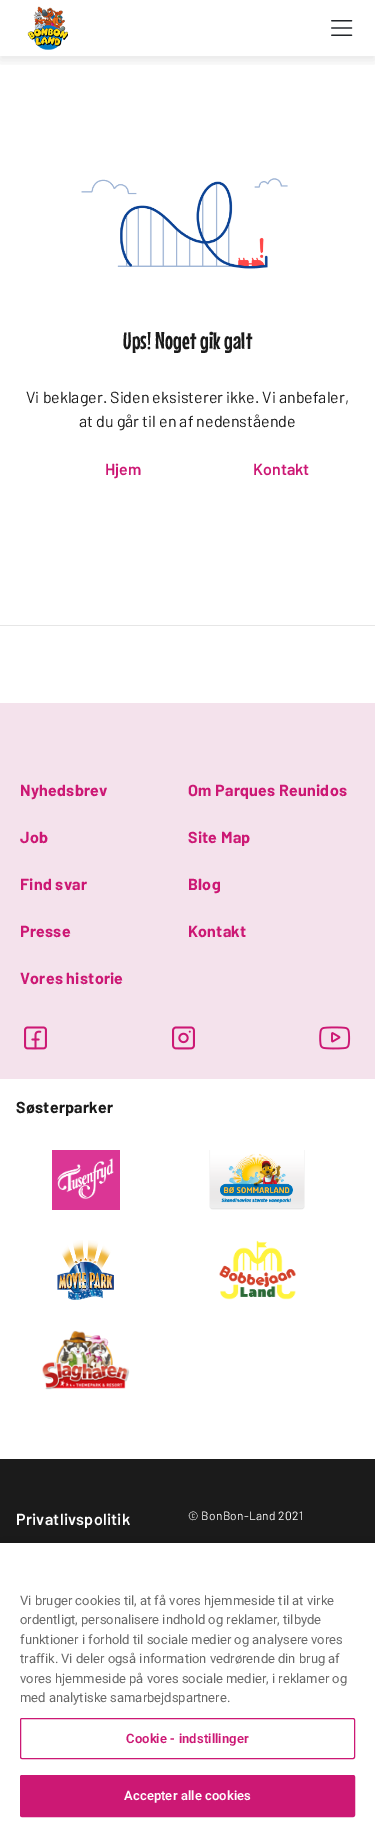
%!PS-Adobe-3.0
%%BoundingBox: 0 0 375 1833
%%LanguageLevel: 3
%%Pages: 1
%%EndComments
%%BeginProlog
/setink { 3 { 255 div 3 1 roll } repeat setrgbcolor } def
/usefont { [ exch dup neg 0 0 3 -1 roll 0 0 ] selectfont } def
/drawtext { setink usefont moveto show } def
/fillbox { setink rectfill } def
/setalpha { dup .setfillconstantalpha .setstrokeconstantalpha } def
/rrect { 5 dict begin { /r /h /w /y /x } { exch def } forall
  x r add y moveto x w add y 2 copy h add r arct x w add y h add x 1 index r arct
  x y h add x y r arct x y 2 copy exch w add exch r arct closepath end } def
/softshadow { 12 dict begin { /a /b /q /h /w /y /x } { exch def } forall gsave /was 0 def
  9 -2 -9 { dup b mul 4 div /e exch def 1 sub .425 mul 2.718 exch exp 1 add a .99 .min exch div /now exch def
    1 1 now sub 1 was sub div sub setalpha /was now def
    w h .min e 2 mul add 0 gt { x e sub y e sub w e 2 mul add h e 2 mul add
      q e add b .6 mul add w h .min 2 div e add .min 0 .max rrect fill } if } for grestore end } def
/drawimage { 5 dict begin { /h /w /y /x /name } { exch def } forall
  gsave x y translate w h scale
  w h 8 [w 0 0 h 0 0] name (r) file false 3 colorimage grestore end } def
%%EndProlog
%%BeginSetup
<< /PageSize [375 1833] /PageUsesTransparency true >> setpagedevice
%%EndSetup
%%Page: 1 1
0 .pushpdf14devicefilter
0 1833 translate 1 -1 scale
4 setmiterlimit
0 0 375 1833 255 255 255 fillbox
gsave
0 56 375 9 rectclip
0 0 0 setink
0 4 375 56 0 6 0.1 softshadow
grestore
(assets/img1.rgb) 27 6 41 44 drawimage
(assets/img2.rgb) 331 20 22 16 drawimage
(assets/img3.rgb) 81 178 207 91 drawimage
(Ups! Noget gik galt) 123 349 /MouseMemoirs-Regular 24 27 27 27 drawtext
(Vi beklager. Siden eksisterer ikke. Vi anbefaler,) 26 403 /Barlow-Regular 16 27 27 27 drawtext
(at du går til en af nedenstående) 79 427 /Barlow-Regular 16 27 27 27 drawtext
(Hjem) 105 475 /Barlow-SemiBold 16 204 24 116 drawtext
(Kontakt) 253 475 /Barlow-SemiBold 16 204 24 116 drawtext
0 625 375 1 230 230 230 fillbox
0 703 375 376 244 226 236 fillbox
/Barlow-Bold 16 usefont
204 24 116 setink
20 796 moveto 0.25 0 (Nyhedsbrev) ashow
188 796 moveto 0.25 0 (Om Parques Reunidos) ashow
20 843 moveto 0.25 0 (Job) ashow
188 843 moveto 0.25 0 (Site Map) ashow
20 890 moveto 0.25 0 (Find svar) ashow
188 890 moveto 0.25 0 (Blog) ashow
20 937 moveto 0.25 0 (Presse) ashow
188 937 moveto 0.25 0 (Kontakt) ashow
20 984 moveto 0.25 0 (Vores historie) ashow
(assets/img4.rgb) 24 1026 23 24 drawimage
(assets/img5.rgb) 172 1026 23 24 drawimage
(assets/img6.rgb) 319 1026 32 24 drawimage
27 27 27 setink
16 1113 moveto 0.25 0 (Søsterparker) ashow
(assets/img7.rgb) 52 1150 68 60 drawimage
(assets/img8.rgb) 209 1150 96 60 drawimage
(assets/img9.rgb) 57 1240 57 60 drawimage
(assets/img10.rgb) 219 1240 77 60 drawimage
(assets/img11.rgb) 42 1330 88 60 drawimage
0 1459 375 84 27 27 27 fillbox
/Barlow-SemiBold 16 usefont
255 255 255 setink
16 1525 moveto 0.25 0 (Privatlivspolitik) ashow
/Barlow-Regular 12 usefont
188 1520 moveto 0.25 0 (© BonBon-Land 2021) ashow
0 0 0 setink
0 1543 375 290 0 9 0.2 softshadow
0 1543 375 290 255 255 255 fillbox
(Vi bruger cookies til, at få vores hjemmeside til at virke) 20 1605 /Roboto-Regular 13 105 105 105 drawtext
(ordentligt, personalisere indhold og reklamer, tilbyde) 20 1624 /Roboto-Regular 13 105 105 105 drawtext
(funktioner i forhold til sociale medier og analysere vores) 20 1644 /Roboto-Regular 13 105 105 105 drawtext
(traffik. Vi deler også information vedrørende din brug af) 20 1663 /Roboto-Regular 13 105 105 105 drawtext
(vores hjemmeside på vores sociale medier, i reklamer og) 20 1683 /Roboto-Regular 13 105 105 105 drawtext
(med analytiske samarbejdspartnere.) 20 1702 /Roboto-Regular 13 105 105 105 drawtext
204 24 116 setink
20.5 1718.5 334 40 1.5 rrect stroke
/Roboto-SemiBold 13 usefont
126 1743 moveto 0.1 0 (Cookie - indstillinger) ashow
20.5 1775.5 334 41 1.5 rrect gsave fill grestore
stroke
255 255 255 setink
124 1800 moveto 0.1 0 (Accepter alle cookies) ashow
.poppdf14devicefilter showpage
%%EOF
